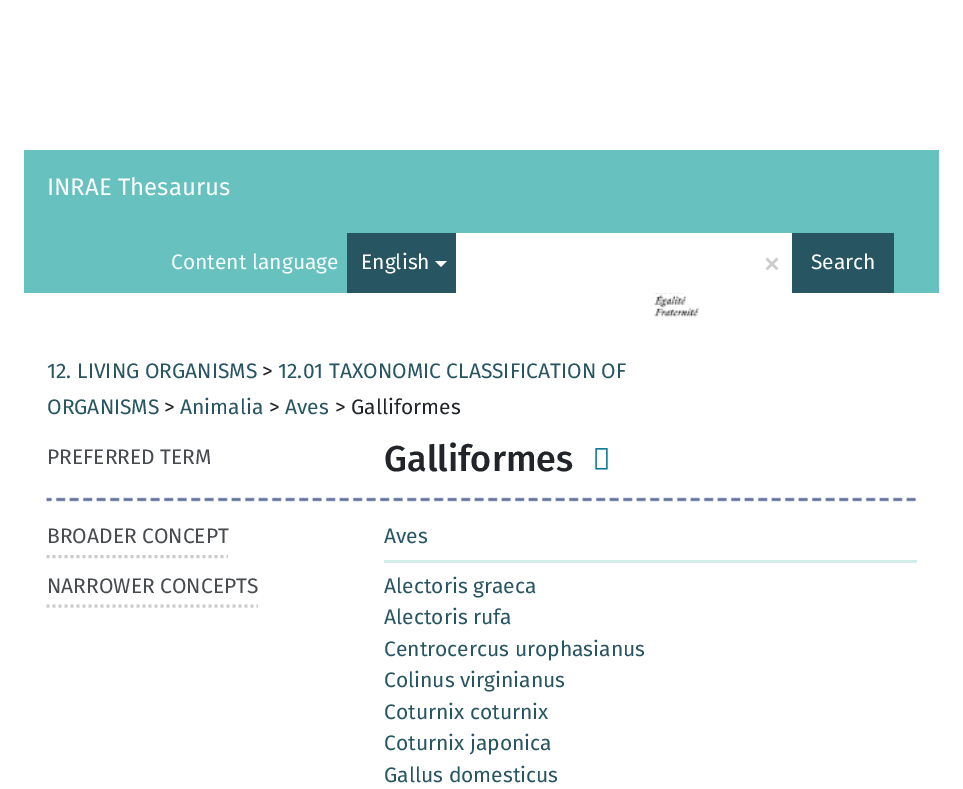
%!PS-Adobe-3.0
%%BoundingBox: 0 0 963 789
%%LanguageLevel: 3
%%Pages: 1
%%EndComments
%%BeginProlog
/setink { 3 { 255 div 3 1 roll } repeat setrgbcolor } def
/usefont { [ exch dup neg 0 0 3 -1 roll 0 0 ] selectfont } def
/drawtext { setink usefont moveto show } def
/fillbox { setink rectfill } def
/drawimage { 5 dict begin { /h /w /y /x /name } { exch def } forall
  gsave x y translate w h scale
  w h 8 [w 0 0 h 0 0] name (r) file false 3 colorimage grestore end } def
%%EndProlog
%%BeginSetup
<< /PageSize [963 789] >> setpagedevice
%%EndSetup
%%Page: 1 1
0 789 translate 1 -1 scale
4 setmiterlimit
0 0 963 789 255 255 255 fillbox
24 150 915 143 102 193 191 fillbox
(INRAE Thesaurus) 47 195 /FiraSans-Regular 24 253 254 254 drawtext
(Content language) 171 269 /FiraSans-Regular 21 247 252 252 drawtext
347 233 109 60 39 86 98 fillbox
(English) 361 269 /FiraSans-Regular 21 253 254 254 drawtext
255 255 255 setink
435 261 moveto 447 261 lineto 441 267 lineto closepath fill
456 233 336 60 255 255 255 fillbox
(×) 763 275 /FiraSans-Regular 36 204 204 204 drawtext
792 233 102 60 39 86 98 fillbox
(Search) 811 269 /FiraSans-Regular 21 253 254 254 drawtext
(assets/img1.rgb) 653 293 277 24 drawimage
(12. LIVING ORGANISMS) 47 378 /FiraSans-Regular 21 39 86 98 drawtext
(>) 262 378 /FiraSans-Regular 21 33 37 41 drawtext
(12.01 TAXONOMIC CLASSIFICATION OF) 278 378 /FiraSans-Regular 21 39 86 98 drawtext
(ORGANISMS) 47 414 /FiraSans-Regular 21 39 86 98 drawtext
(>) 164 414 /FiraSans-Regular 21 33 37 41 drawtext
(Animalia) 180 414 /FiraSans-Regular 21 39 86 98 drawtext
(>) 269 414 /FiraSans-Regular 21 33 37 41 drawtext
(Aves) 285 414 /FiraSans-Regular 21 39 86 98 drawtext
(> Galliformes) 335 414 /FiraSans-Regular 21 33 37 41 drawtext
(PREFERRED TERM) 47 464 /FiraSans-Regular 21 71 75 79 drawtext
(Galliformes) 384 471 /FiraSans-Medium 36 33 37 41 drawtext
(assets/img2.rgb) 595 448 13 22 drawimage
(assets/img3.rgb) 46 497 870 5 drawimage
204 204 204 setink
3 setlinewidth
[3 3] 0 setdash
46.5 556.5 moveto 228 556.5 lineto stroke
(BROADER CONCEPT) 47 543 /FiraSans-Regular 21 71 75 79 drawtext
384 560 533 3 212 237 235 fillbox
(Aves) 384 543 /FiraSans-Regular 21 39 86 98 drawtext
204 204 204 setink
46.5 606 moveto 258 606 lineto stroke
(NARROWER CONCEPTS) 47 593 /FiraSans-Regular 21 71 75 79 drawtext
(Alectoris graeca) 384 593 /FiraSans-Regular 21 39 86 98 drawtext
(Alectoris rufa) 384 624 /FiraSans-Regular 21 39 86 98 drawtext
(Centrocercus urophasianus) 384 656 /FiraSans-Regular 21 39 86 98 drawtext
(Colinus virginianus) 384 687 /FiraSans-Regular 21 39 86 98 drawtext
(Coturnix coturnix) 384 719 /FiraSans-Regular 21 39 86 98 drawtext
(Coturnix japonica) 384 750 /FiraSans-Regular 21 39 86 98 drawtext
(Gallus domesticus) 384 782 /FiraSans-Regular 21 39 86 98 drawtext
showpage
%%EOF
